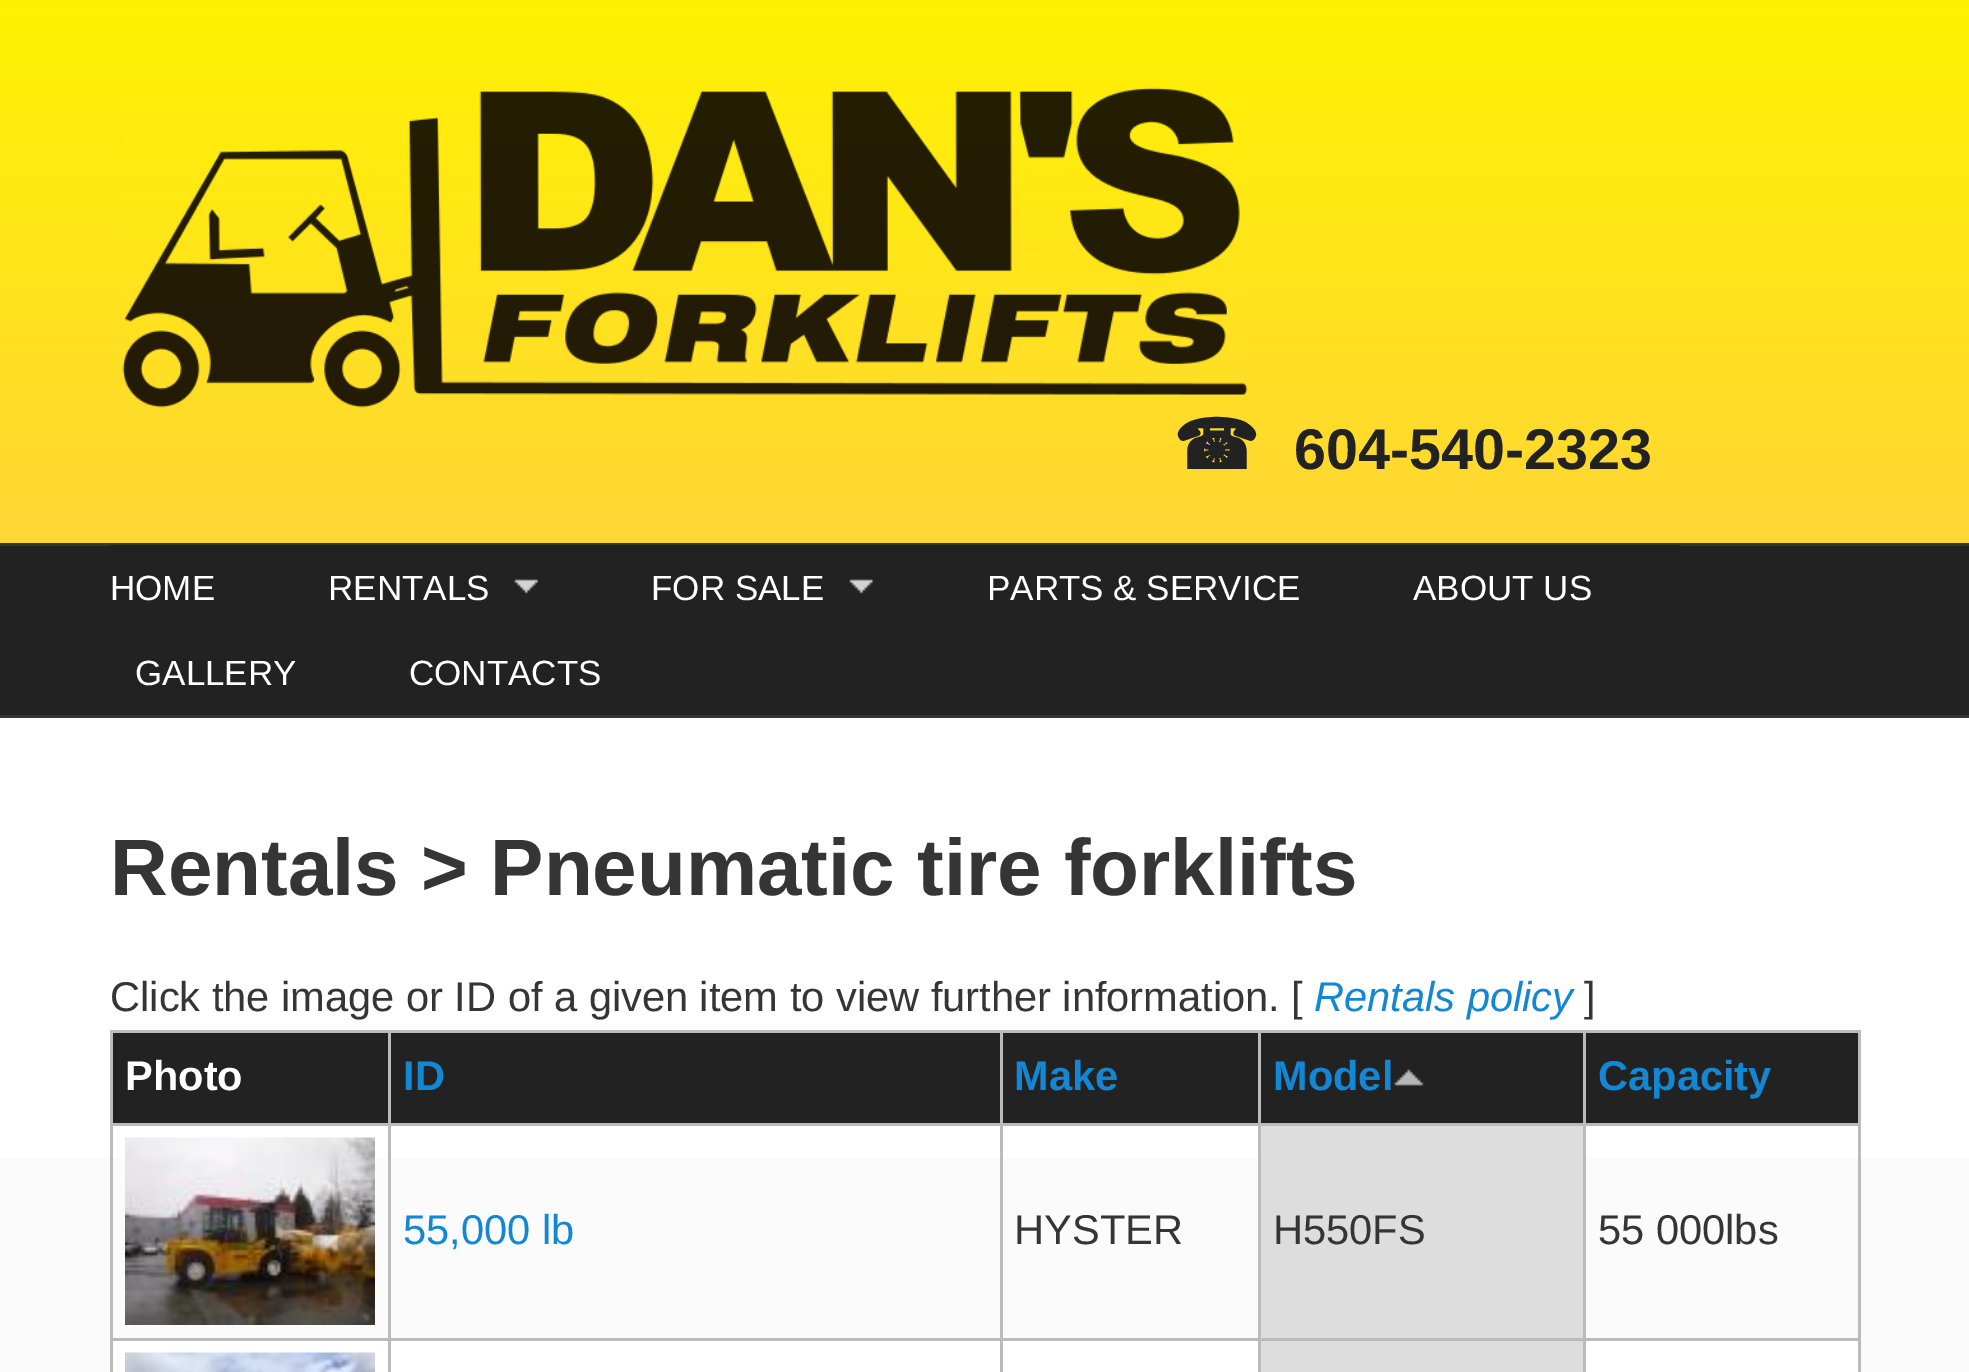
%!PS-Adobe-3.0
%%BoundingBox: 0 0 1969 1372
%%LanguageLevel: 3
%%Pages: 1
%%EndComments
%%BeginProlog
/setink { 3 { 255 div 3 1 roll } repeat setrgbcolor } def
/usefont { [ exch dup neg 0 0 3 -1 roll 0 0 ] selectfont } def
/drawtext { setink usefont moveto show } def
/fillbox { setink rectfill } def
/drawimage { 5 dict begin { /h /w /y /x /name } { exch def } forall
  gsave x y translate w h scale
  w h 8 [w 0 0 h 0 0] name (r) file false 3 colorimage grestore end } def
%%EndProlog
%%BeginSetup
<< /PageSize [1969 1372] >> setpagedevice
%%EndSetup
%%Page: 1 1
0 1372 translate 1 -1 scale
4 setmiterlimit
0 0 1969 1372 255 255 255 fillbox
gsave 0 0 moveto 1969 0 lineto 1969 543 lineto 0 543 lineto closepath clip newpath
<< /ShadingType 2 /ColorSpace /DeviceRGB /Coords [985 0 985 543] /Extend [true true] /Function << /FunctionType 2 /Domain [0 1] /C0 [1 0.949 0] /C1 [1 0.839 0.208] /N 1 >> >> shfill grestore
(assets/img1.rgb) 122 87 1126 321 drawimage
(☎) 1173 469 /DejaVuSans-Bold 69 34 34 34 drawtext
(604-540-2323) 1294 469 /LiberationSans-Bold 57.5 34 34 34 drawtext
0 546 1969 169 34 34 34 fillbox
0 543 1969 3 53 53 53 fillbox
0 715 1969 3 53 53 53 fillbox
110 545 1570 1 34 34 34 fillbox
(HOME) 110 600 /LiberationSans-Regular 35 255 255 255 drawtext
(RENTALS) 328 600 /LiberationSans-Regular 35 255 255 255 drawtext
(assets/img2.rgb) 514 579 24 15 drawimage
(FOR SALE) 651 600 /LiberationSans-Regular 35 255 255 255 drawtext
(assets/img2.rgb) 849 579 24 15 drawimage
(PARTS & SERVICE) 987 600 /LiberationSans-Regular 35 255 255 255 drawtext
(ABOUT US) 1413 600 /LiberationSans-Regular 35 255 255 255 drawtext
(GALLERY) 135 685 /LiberationSans-Regular 35 255 255 255 drawtext
(CONTACTS) 409 685 /LiberationSans-Regular 35 255 255 255 drawtext
0 718 1969 2 252 252 252 fillbox
gsave 0 1158 moveto 1969 1158 lineto 1969 1372 lineto 0 1372 lineto closepath clip newpath
<< /ShadingType 2 /ColorSpace /DeviceRGB /Coords [985 720 985 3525] /Extend [true true] /Function << /FunctionType 2 /Domain [0 1] /C0 [1 1 1] /C1 [0.937 0.937 0.937] /N 1 >> >> shfill grestore
(Rentals > Pneumatic tire forklifts) 110 895 /LiberationSans-Bold 80 53 53 53 drawtext
(Click the image or ID of a given item to view further information. [) 110 1011 /LiberationSans-Regular 41.6 53 53 53 drawtext
(Rentals policy) 1314 1011 /LiberationSans-Italic 41.6 20 135 212 drawtext
(]) 1584 1011 /LiberationSans-Regular 41.6 53 53 53 drawtext
113 1033 275 90 34 34 34 fillbox
1583 1030 277 3 187 187 187 fillbox
1583 1123 277 3 187 187 187 fillbox
1583 1338 277 3 187 187 187 fillbox
113 1341 1745 31 255 255 255 fillbox
1583 1338 3 34 187 187 187 fillbox
1258 1338 327 3 187 187 187 fillbox
1583 1123 3 217 187 187 187 fillbox
1258 1123 327 3 187 187 187 fillbox
1583 1030 3 95 187 187 187 fillbox
1258 1030 327 3 187 187 187 fillbox
1258 1338 3 34 187 187 187 fillbox
1000 1338 260 3 187 187 187 fillbox
1258 1123 3 217 187 187 187 fillbox
1000 1123 260 3 187 187 187 fillbox
1258 1030 3 95 187 187 187 fillbox
1000 1030 260 3 187 187 187 fillbox
1000 1338 3 34 187 187 187 fillbox
388 1338 615 3 187 187 187 fillbox
1000 1123 3 217 187 187 187 fillbox
388 1123 615 3 187 187 187 fillbox
1000 1030 3 95 187 187 187 fillbox
388 1030 615 3 187 187 187 fillbox
388 1338 3 34 187 187 187 fillbox
110 1338 280 3 187 187 187 fillbox
388 1123 3 217 187 187 187 fillbox
110 1123 280 3 187 187 187 fillbox
388 1030 3 95 187 187 187 fillbox
110 1030 280 3 187 187 187 fillbox
110 1338 3 34 187 187 187 fillbox
110 1123 3 217 187 187 187 fillbox
110 1030 3 95 187 187 187 fillbox
(Photo) 125 1090 /LiberationSans-Bold 41.6 255 255 255 drawtext
391 1033 609 90 34 34 34 fillbox
(ID) 403 1090 /LiberationSans-Bold 41.6 20 135 212 drawtext
1003 1033 255 90 34 34 34 fillbox
(Make) 1014 1090 /LiberationSans-Bold 41.6 20 135 212 drawtext
1261 1033 322 90 34 34 34 fillbox
(Model) 1273 1090 /LiberationSans-Bold 41.6 20 135 212 drawtext
(assets/img3.rgb) 1394 1069 30 17 drawimage
1586 1033 272 90 34 34 34 fillbox
1858 1338 3 34 187 187 187 fillbox
1858 1123 3 217 187 187 187 fillbox
1858 1030 3 95 187 187 187 fillbox
(Capacity) 1598 1090 /LiberationSans-Bold 41.6 20 135 212 drawtext
(assets/img4.rgb) 125 1137 250 188 drawimage
(55,000 lb) 403 1244 /LiberationSans-Regular 41.6 20 135 212 drawtext
(HYSTER) 1014 1244 /LiberationSans-Regular 41.6 53 53 53 drawtext
1261 1126 322 212 221 221 221 fillbox
(H550FS) 1273 1244 /LiberationSans-Regular 41.6 53 53 53 drawtext
(55 000lbs) 1598 1244 /LiberationSans-Regular 41.6 53 53 53 drawtext
(assets/img5.rgb) 125 1352 250 20 drawimage
1261 1341 322 31 221 221 221 fillbox
showpage
%%EOF
